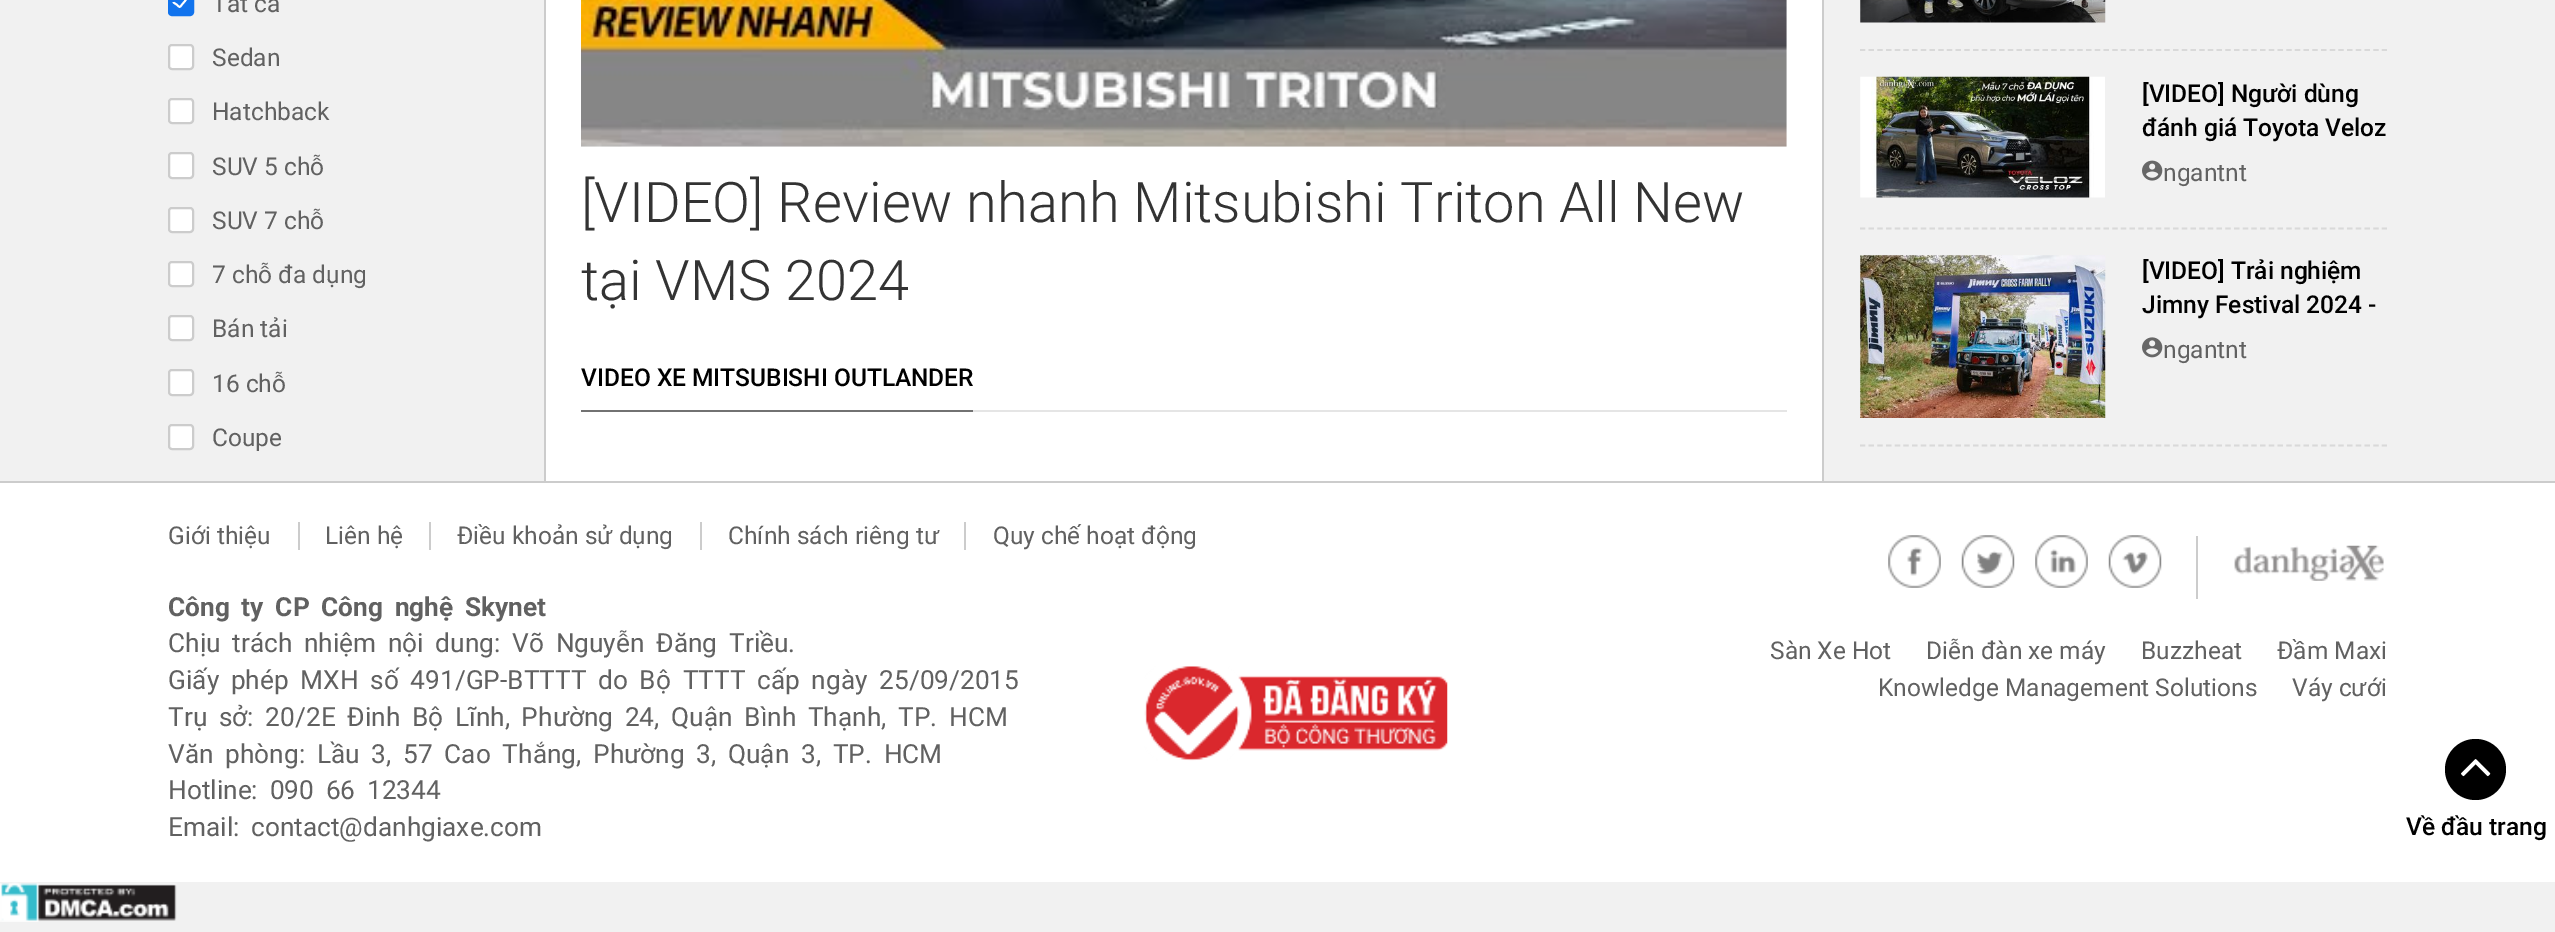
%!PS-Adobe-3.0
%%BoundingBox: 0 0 2555 932
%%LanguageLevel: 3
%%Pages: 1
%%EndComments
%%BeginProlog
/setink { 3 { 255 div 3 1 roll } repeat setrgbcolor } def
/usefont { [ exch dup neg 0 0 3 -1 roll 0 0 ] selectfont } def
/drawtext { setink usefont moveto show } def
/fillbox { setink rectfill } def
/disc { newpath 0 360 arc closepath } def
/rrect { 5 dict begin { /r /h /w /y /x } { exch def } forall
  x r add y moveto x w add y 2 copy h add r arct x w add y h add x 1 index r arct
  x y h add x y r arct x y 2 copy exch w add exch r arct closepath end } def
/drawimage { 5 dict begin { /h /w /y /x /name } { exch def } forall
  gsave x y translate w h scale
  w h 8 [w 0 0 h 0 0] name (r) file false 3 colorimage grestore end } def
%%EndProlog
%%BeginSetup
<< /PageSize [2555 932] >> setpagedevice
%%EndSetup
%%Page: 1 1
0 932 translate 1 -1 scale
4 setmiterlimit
0 0 2555 932 241 241 241 fillbox
17 115 237 setink
170 -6 22 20 2 rrect gsave fill grestore
4 setlinewidth
stroke
255 255 255 setink
1.8 setlinewidth
189 -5.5 moveto 189.5 -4 185.5 0 185 1 curveto 182 4.5 lineto 179.5 8 180 7.5 176.5 4.5 curveto 176 4 173.5 3 173.5 2 curveto stroke
(Tất cả) 212 12 /Roboto-Regular 24.5 97 97 97 drawtext
255 255 255 setink
169 45 24 24 3 rrect gsave fill grestore
204 204 204 setink
2 setlinewidth
stroke
(Sedan) 212 66 /Roboto-Regular 24.5 97 97 97 drawtext
255 255 255 setink
169 99 24 24 3 rrect gsave fill grestore
204 204 204 setink
stroke
(Hatchback) 212 120 /Roboto-Regular 24.5 97 97 97 drawtext
255 255 255 setink
169 153 24 25 3 rrect gsave fill grestore
204 204 204 setink
stroke
(SUV 5 chỗ) 212 175 /Roboto-Regular 24.5 97 97 97 drawtext
255 255 255 setink
169 208 24 24 3 rrect gsave fill grestore
204 204 204 setink
stroke
(SUV 7 chỗ) 212 229 /Roboto-Regular 24.5 97 97 97 drawtext
255 255 255 setink
169 262 24 24 3 rrect gsave fill grestore
204 204 204 setink
stroke
(7 chỗ đa dụng) 212 283 /Roboto-Regular 24.5 97 97 97 drawtext
255 255 255 setink
169 316 24 24 3 rrect gsave fill grestore
204 204 204 setink
stroke
(Bán tải) 212 337 /Roboto-Regular 24.5 97 97 97 drawtext
255 255 255 setink
169 370 24 25 3 rrect gsave fill grestore
204 204 204 setink
stroke
(16 chỗ) 212 392 /Roboto-Regular 24.5 97 97 97 drawtext
255 255 255 setink
169 425 24 24 3 rrect gsave fill grestore
204 204 204 setink
stroke
(Coupe) 212 446 /Roboto-Regular 24.5 97 97 97 drawtext
546 0 1276 481 255 255 255 fillbox
1822 0 2 481 204 204 204 fillbox
544 0 2 481 204 204 204 fillbox
(assets/img1.rgb) 581 0 1206 147 drawimage
([VIDEO] Review nhanh Mitsubishi Triton All New) 581 222 /Roboto-Light 56 51 51 51 drawtext
(tại VMS 2024) 581 300 /Roboto-Light 56 51 51 51 drawtext
973 410 814 2 229 229 229 fillbox
581 410 392 2 114 114 114 fillbox
(VIDEO XE MITSUBISHI OUTLANDER) 581 386 /Roboto-Medium 24.5 0 0 0 drawtext
217 217 217 setink
1.8 setlinewidth
[5.25 3.45] 0 setdash
1860 50 moveto 2387 50 lineto stroke
(assets/img2.rgb) 1860 0 246 23 drawimage
1860 228.5 moveto 2387 228.5 lineto stroke
(assets/img3.rgb) 1860 76 245 122 drawimage
([VIDEO] Người dùng) 2142 102 /Roboto-Medium 24.5 0 0 0 drawtext
(đánh giá Toyota Veloz) 2142 136 /Roboto-Medium 24.5 0 0 0 drawtext
(assets/img4.rgb) 2142 160 21 21 drawimage
(ngantnt) 2163 181 /Roboto-Regular 24.5 97 97 97 drawtext
217 217 217 setink
1860 445.5 moveto 2387 445.5 lineto stroke
(assets/img5.rgb) 1860 255 246 163 drawimage
([VIDEO] Trải nghiệm) 2142 279 /Roboto-Medium 24.5 0 0 0 drawtext
(Jimny Festival 2024 -) 2142 313 /Roboto-Medium 24.5 0 0 0 drawtext
(assets/img6.rgb) 2142 337 21 21 drawimage
(ngantnt) 2163 358 /Roboto-Regular 24.5 97 97 97 drawtext
0 483 2555 399 255 255 255 fillbox
0 481 2555 2 204 204 204 fillbox
(Giới thiệu) 168 544 /Roboto-Regular 24.5 97 97 97 drawtext
298 522 2 28 204 204 204 fillbox
(Liên hệ) 325 544 /Roboto-Regular 24.5 97 97 97 drawtext
429 522 2 28 204 204 204 fillbox
(Điều khoản sử dụng) 457 544 /Roboto-Regular 24.5 97 97 97 drawtext
700 522 2 28 204 204 204 fillbox
(Chính sách riêng tư) 728 544 /Roboto-Regular 24.5 97 97 97 drawtext
964 522 2 28 204 204 204 fillbox
(Quy chế hoạt động) 993 544 /Roboto-Regular 24.5 97 97 97 drawtext
/Roboto-Bold 26.25 usefont
168 616 moveto 5.25 0 32 (Công ty CP Công nghệ Skynet) widthshow
/Roboto-Regular 26.25 usefont
168 652 moveto 5.25 0 32 (Chịu trách nhiệm nội dung: Võ Nguyễn Đăng Triều.) widthshow
168 689 moveto 5.25 0 32 (Giấy phép MXH số 491/GP-BTTTT do Bộ TTTT cấp ngày 25/09/2015) widthshow
168 726 moveto 5.25 0 32 (Trụ sở: 20/2E Đinh Bộ Lĩnh, Phường 24, Quận Bình Thạnh, TP. HCM) widthshow
168 763 moveto 5.25 0 32 (Văn phòng: Lầu 3, 57 Cao Thắng, Phường 3, Quận 3, TP. HCM) widthshow
168 799 moveto 5.25 0 32 (Hotline: 090 66 12344) widthshow
168 836 moveto 5.25 0 32 (Email: contact@danhgiaxe.com) widthshow
(assets/img7.rgb) 1144 666 304 95 drawimage
(assets/img8.rgb) 1888 535 53 53 drawimage
(assets/img9.rgb) 1961 535 54 53 drawimage
(assets/img10.rgb) 2035 535 53 53 drawimage
(assets/img11.rgb) 2108 535 54 53 drawimage
2196 536 2 63 204 204 204 fillbox
(assets/img12.rgb) 2234 545 150 36 drawimage
(Sàn Xe Hot) 1770 659 /Roboto-Regular 24.5 97 97 97 drawtext
(Diễn đàn xe máy) 1926 659 /Roboto-Regular 24.5 97 97 97 drawtext
(Buzzheat) 2141 659 /Roboto-Regular 24.5 97 97 97 drawtext
(Đầm Maxi) 2277 659 /Roboto-Regular 24.5 97 97 97 drawtext
(Knowledge Management Solutions) 1878 696 /Roboto-Regular 24.5 97 97 97 drawtext
(Váy cưới) 2292 696 /Roboto-Regular 24.5 97 97 97 drawtext
0 0 0 setink
2475.5 769.5 30.5 disc fill
(assets/img13.rgb) 2461 759 30 18 drawimage
(Về đầu trang) 2406 835 /Roboto-Medium 24.5 0 0 0 drawtext
(assets/img14.rgb) 0 882 177 40 drawimage
showpage
%%EOF
